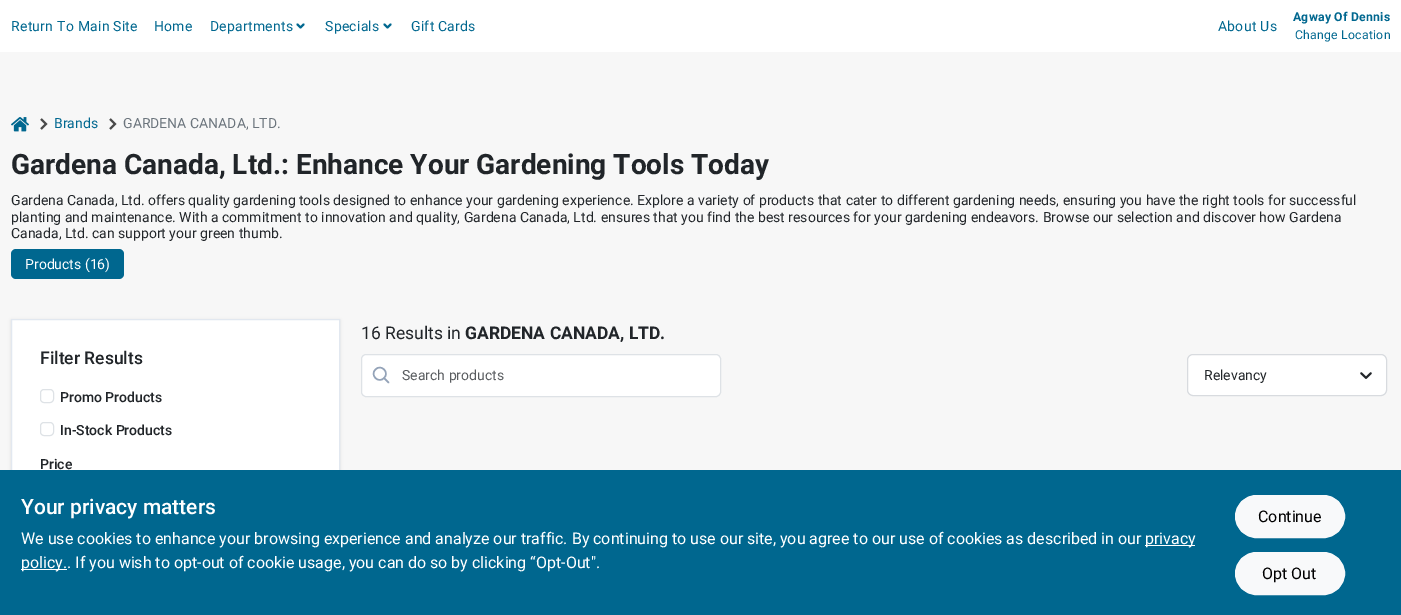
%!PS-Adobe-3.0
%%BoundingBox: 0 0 1401 615
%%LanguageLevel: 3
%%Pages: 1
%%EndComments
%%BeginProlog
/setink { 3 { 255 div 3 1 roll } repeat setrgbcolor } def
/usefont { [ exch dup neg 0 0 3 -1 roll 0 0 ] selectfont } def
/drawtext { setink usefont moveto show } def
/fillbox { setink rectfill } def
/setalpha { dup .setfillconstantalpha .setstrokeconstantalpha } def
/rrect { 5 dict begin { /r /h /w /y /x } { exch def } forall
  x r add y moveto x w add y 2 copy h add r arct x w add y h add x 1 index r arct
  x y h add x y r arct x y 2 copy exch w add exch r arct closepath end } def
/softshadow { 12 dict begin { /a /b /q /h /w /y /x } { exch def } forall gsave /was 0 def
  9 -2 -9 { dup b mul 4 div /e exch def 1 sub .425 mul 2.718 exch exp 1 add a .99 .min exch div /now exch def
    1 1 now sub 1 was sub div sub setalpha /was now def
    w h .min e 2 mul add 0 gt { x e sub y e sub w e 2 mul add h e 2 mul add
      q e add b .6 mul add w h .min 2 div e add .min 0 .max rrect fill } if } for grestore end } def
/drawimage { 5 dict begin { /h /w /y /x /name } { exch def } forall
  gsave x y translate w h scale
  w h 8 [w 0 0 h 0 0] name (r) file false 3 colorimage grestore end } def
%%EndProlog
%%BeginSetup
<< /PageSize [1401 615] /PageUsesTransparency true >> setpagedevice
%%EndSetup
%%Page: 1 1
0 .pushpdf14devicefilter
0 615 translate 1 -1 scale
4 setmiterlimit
0 0 1401 615 247 247 247 fillbox
0 0 1401 52 255 255 255 fillbox
/Roboto-Regular 14 usefont
0 103 143 setink
11 31 moveto 0.25 0 (Return To Main Site) ashow
154 31 moveto 0.25 0 (Home) ashow
210 31 moveto 0.25 0 (Departments) ashow
2 setlinewidth
1 setlinecap
1 setlinejoin
303.5 24.5 moveto 300.5 27.5 lineto 297.5 24.5 lineto stroke
325 31 moveto 0.25 0 (Specials) ashow
390.5 24.5 moveto 387.5 27.5 lineto 384.5 24.5 lineto stroke
411 31 moveto 0.25 0 (Gift Cards) ashow
1218 31 moveto 0.25 0 (About Us) ashow
/Roboto-Bold 12.25 usefont
1293 21 moveto 0.25 0 (Agway Of Dennis) ashow
/Roboto-Regular 12.25 usefont
1295 39 moveto 0.25 0 (Change Location) ashow
(assets/img1.rgb) 11 117 18 15 drawimage
73 73 73 setink
0 setlinecap
0 setlinejoin
41 119 moveto 46 124 lineto 41 129 lineto stroke
(Brands) 54 128 /Roboto-Regular 14 0 103 143 drawtext
73 73 73 setink
110 119 moveto 115 124 lineto 110 129 lineto stroke
(GARDENA CANADA, LTD.) 123 128 /Roboto-Regular 14 108 117 125 drawtext
(Gardena Canada, Ltd.: Enhance Your Gardening Tools Today) 11 174 /Roboto-Bold 28 33 37 41 drawtext
(Gardena Canada, Ltd. offers quality gardening tools designed to enhance your gardening experience. Explore a variety of products that cater to different gardening needs, ensuring you have the right tools for successful) 11 205 /Roboto-Regular 14 33 37 41 drawtext
(planting and maintenance. With a commitment to innovation and quality, Gardena Canada, Ltd. ensures that you find the best resources for your gardening endeavors. Browse our selection and discover how Gardena) 11 222 /Roboto-Regular 14 33 37 41 drawtext
(Canada, Ltd. can support your green thumb.) 11 238 /Roboto-Regular 14 33 37 41 drawtext
0 103 143 setink
11 249 113 30 5 rrect fill
(Products \(16\)) 25 269 /Roboto-Regular 14 255 255 255 drawtext
0 0 0 setink
11 320 329 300 0 1.5 0.1 softshadow
12 320 327 150 255 255 255 fillbox
226 232 240 setink
1 setlinewidth
11.5 319.5 328 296 rectstroke
(Filter Results) 40 364 /Roboto-Medium 17.5 33 37 41 drawtext
222 226 230 setink
40.5 389.5 13 13 3.5 rrect stroke
(Promo Products) 60 402 /Roboto-Medium 14 33 37 41 drawtext
222 226 230 setink
40.5 422.5 13 13 3.5 rrect stroke
(In-Stock Products) 60 435 /Roboto-Medium 14 33 37 41 drawtext
(Price) 40 469 /Roboto-Medium 14 33 37 41 drawtext
(16 Results in) 361 339 /Roboto-Regular 17.5 33 37 41 drawtext
(GARDENA CANADA, LTD.) 465 339 /Roboto-Bold 17.5 33 37 41 drawtext
255 255 255 setink
362 355 358 41 4 rrect fill
148 163 184 setink
1.5 setlinewidth
1 setlinecap
1 setlinejoin
388.5 382.5 moveto 384 378 lineto 384 378 moveto 390 372.5 381 363.5 375.5 369.5 curveto 369.5 375 378.5 384 384 378 curveto closepath stroke
222 226 230 setink
1 setlinewidth
0 setlinecap
0 setlinejoin
361.5 354.5 359 42 4.5 rrect stroke
(Search products) 402 380 /Roboto-Regular 14 89 92 95 drawtext
255 255 255 setink
1187.5 354.5 199 41 5.5 rrect gsave fill grestore
216 219 223 setink
stroke
(Relevancy) 1204 380 /Roboto-Regular 14 33 37 41 drawtext
(assets/img2.rgb) 1360 372 12 7 drawimage
0 470 1401 145 0 103 143 fillbox
(Your privacy matters) 21 514 /Roboto-Medium 21 255 255 255 drawtext
(We use cookies to enhance your browsing experience and analyze our traffic. By continuing to use our site, you agree to our use of cookies as described in our) 21 544 /Roboto-Regular 16 255 255 255 drawtext
1145 545 50 1 255 255 255 fillbox
(privacy) 1145 544 /Roboto-Regular 16 255 255 255 drawtext
21 569 46 1 255 255 255 fillbox
(policy.. If you wish to opt-out of cookie usage, you can do so by clicking “Opt-Out".) 21 568 /Roboto-Regular 16 255 255 255 drawtext
248 249 250 setink
1235.5 495.5 109 42 21 rrect gsave fill grestore
stroke
(Continue) 1258 522 /Roboto-Regular 16 0 0 0 drawtext
248 249 250 setink
1235.5 552.5 109 42 21 rrect gsave fill grestore
stroke
(Opt Out) 1262 579 /Roboto-Regular 16 0 0 0 drawtext
.poppdf14devicefilter showpage
%%EOF
